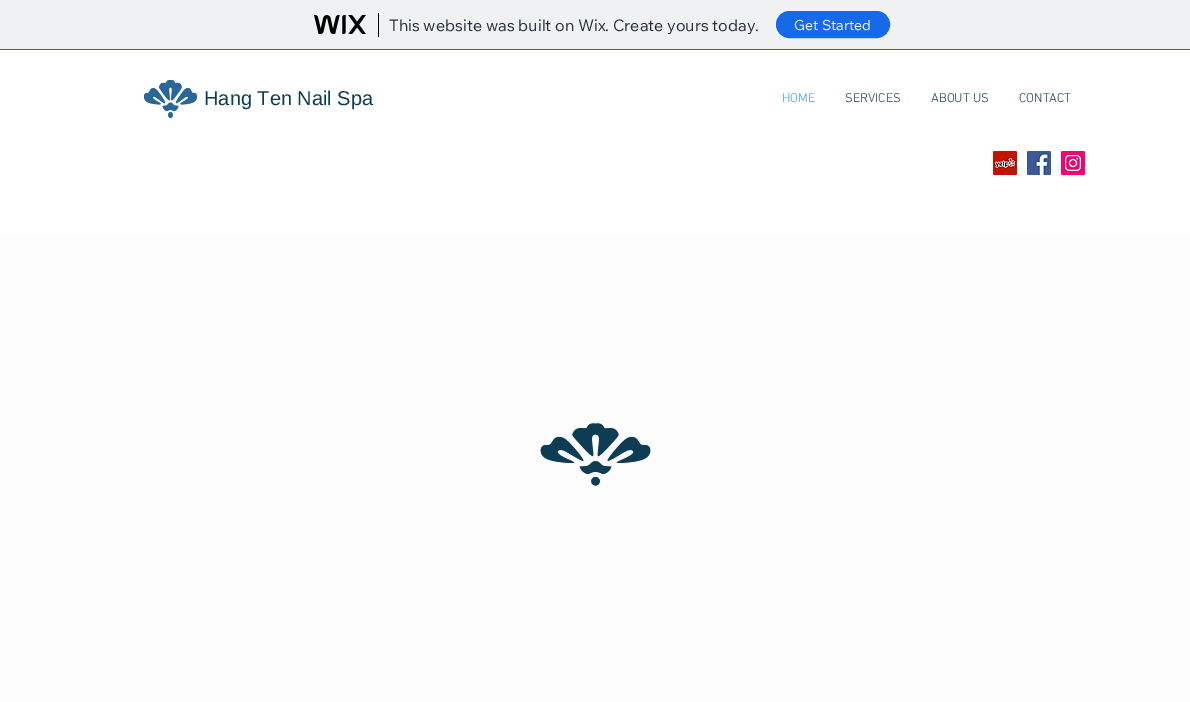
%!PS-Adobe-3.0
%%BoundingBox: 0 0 1190 702
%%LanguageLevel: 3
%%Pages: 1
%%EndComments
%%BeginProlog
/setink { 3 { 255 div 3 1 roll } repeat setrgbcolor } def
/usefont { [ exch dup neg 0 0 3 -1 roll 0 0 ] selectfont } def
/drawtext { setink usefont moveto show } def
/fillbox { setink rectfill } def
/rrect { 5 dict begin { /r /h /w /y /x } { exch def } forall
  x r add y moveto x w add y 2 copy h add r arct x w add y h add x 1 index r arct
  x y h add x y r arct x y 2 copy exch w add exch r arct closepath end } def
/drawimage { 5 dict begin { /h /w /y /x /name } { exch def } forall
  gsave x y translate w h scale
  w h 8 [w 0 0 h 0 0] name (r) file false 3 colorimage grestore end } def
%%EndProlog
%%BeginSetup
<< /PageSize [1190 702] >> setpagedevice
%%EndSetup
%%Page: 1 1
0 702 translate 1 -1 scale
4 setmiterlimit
0 0 1190 702 255 255 255 fillbox
0 0 1190 49 239 241 242 fillbox
0 49 1190 1 22 106 234 fillbox
378 13 1 24 0 0 0 fillbox
(assets/img1.rgb) 314 15 52 19 drawimage
(This website was built on Wix. Create yours today.) 389 31 /WixMadeforText-Regular 16 32 48 60 drawtext
22 106 234 setink
776.5 11.5 113 26 13 rrect gsave fill grestore
stroke
(Get Started) 794 30 /WixMadeforText-Regular 14 255 255 255 drawtext
(assets/img2.rgb) 144 80 53 38 drawimage
(Hang Ten Nail Spa) 204 105 /LiberationSans-Regular 20 14 60 83 drawtext
(HOME) 782 102 /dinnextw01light-Light 13 61 155 233 drawtext
(SERVICES) 845 102 /dinnextw01light-Light 13 14 60 83 drawtext
(ABOUT US) 931 102 /dinnextw01light-Light 13 14 60 83 drawtext
(CONTACT) 1019 102 /dinnextw01light-Light 13 14 60 83 drawtext
(assets/img3.rgb) 993 151 24 24 drawimage
(assets/img4.rgb) 1027 151 24 24 drawimage
(assets/img5.rgb) 1061 151 24 24 drawimage
0 235 1190 467 252 252 252 fillbox
(assets/img6.rgb) 540 422 111 65 drawimage
showpage
%%EOF
